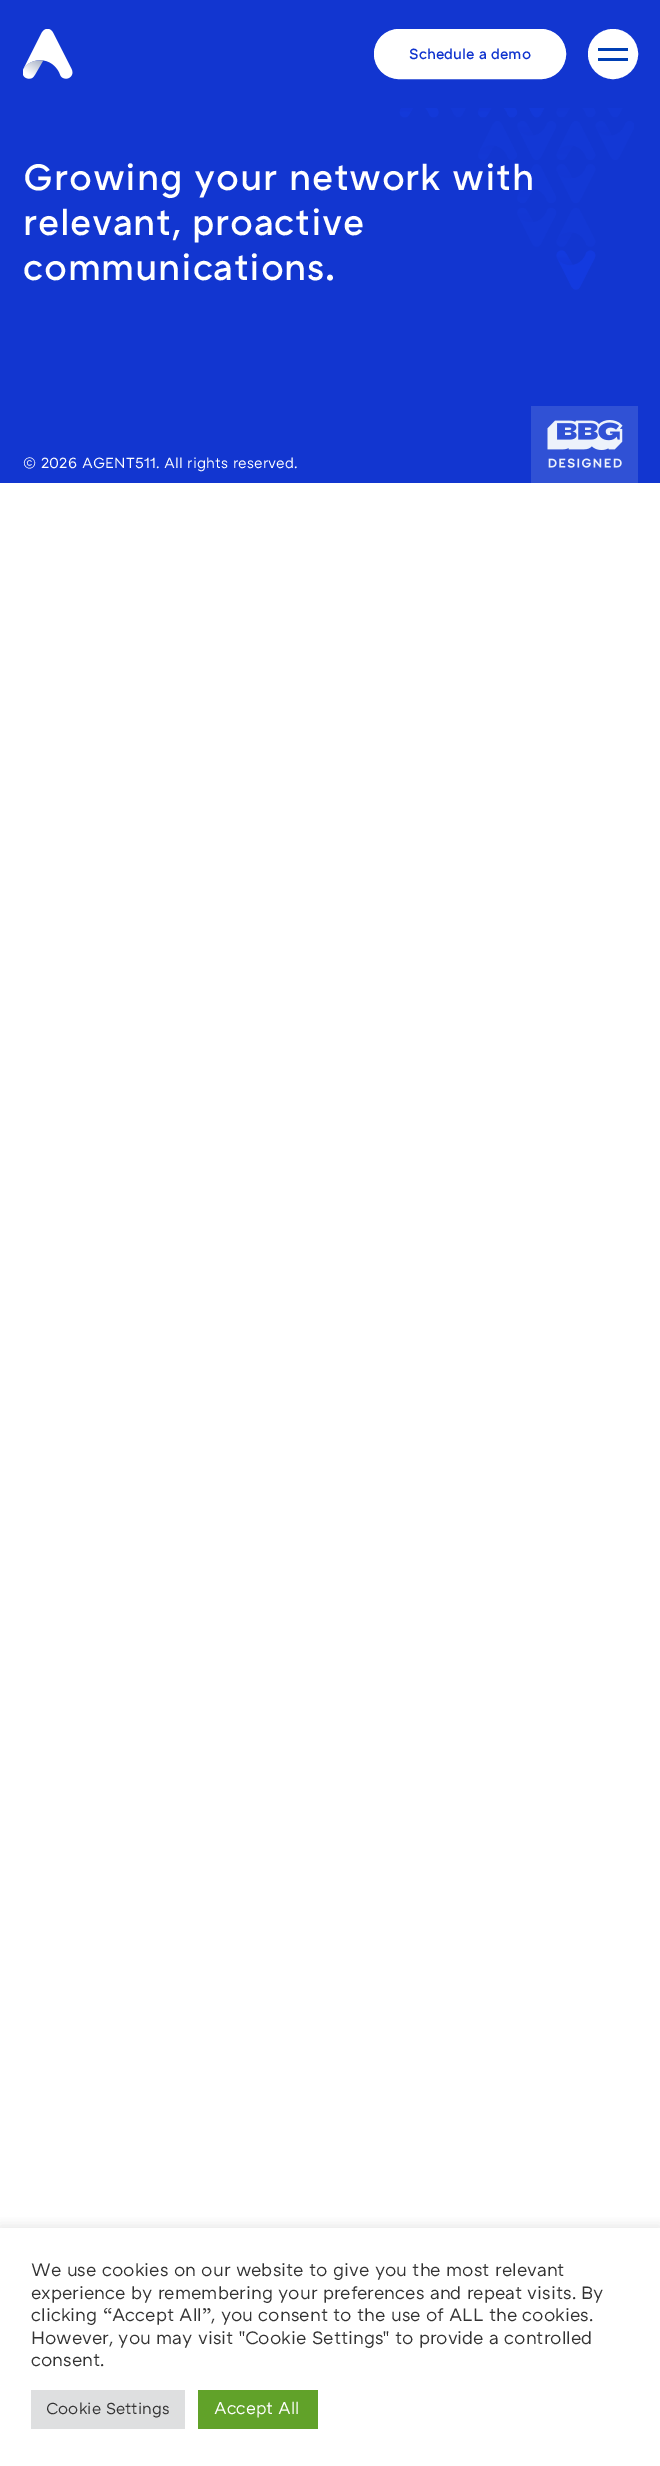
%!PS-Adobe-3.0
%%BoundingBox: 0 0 660 2466
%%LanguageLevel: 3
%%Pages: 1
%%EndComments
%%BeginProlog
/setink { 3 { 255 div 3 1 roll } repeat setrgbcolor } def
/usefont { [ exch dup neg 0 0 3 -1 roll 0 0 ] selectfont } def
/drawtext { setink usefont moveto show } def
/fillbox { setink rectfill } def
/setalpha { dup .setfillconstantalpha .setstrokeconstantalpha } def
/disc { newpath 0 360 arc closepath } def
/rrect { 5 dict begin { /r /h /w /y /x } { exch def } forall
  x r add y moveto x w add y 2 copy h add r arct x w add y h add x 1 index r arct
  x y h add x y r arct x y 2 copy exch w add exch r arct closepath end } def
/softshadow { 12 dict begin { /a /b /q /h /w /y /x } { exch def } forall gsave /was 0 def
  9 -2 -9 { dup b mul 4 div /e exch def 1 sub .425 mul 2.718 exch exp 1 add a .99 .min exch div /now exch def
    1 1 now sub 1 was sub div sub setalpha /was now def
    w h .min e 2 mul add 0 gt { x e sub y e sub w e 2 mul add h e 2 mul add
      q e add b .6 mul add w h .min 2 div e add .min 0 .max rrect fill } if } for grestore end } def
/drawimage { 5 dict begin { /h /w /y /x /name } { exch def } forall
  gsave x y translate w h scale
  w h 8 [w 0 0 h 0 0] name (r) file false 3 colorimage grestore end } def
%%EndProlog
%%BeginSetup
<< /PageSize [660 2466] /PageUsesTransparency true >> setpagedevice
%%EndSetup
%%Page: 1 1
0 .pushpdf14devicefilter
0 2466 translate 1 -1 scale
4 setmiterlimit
0 0 660 2466 255 255 255 fillbox
0 0 660 483 18 54 208 fillbox
(assets/img1.rgb) 23 29 50 50 drawimage
255 255 255 setink
374.5 29.5 191 49 24.5 rrect gsave fill grestore
stroke
(Schedule a demo) 409 59 /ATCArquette-Medium 15 14 50 206 drawtext
255 255 255 setink
613 54 23.5 disc gsave fill grestore
3 setlinewidth
stroke
598 48 30 3 0 63 180 fillbox
598 58 30 3 0 63 180 fillbox
(assets/img2.rgb) 361 108 273 182 drawimage
/ATCArquette-Medium 37.5 usefont
255 255 255 setink
23 190 moveto 0.6 0 (Growing your network with) ashow
23 235 moveto 0.6 0 (relevant, proactive) ashow
23 280 moveto 0.6 0 (communications.) ashow
/ATCArquette-Regular 15 usefont
23 468 moveto 0.1 0 (© 2026 AGENT511. All rights reserved.) ashow
(assets/img3.rgb) 531 406 107 77 drawimage
gsave
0 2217 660 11 rectclip
172 171 171 setink
0 2226 660 239 0 6 0.3 softshadow
grestore
(We use cookies on our website to give you the most relevant) 31 2276 /ATCArquette-Regular 18.3 51 51 51 drawtext
(experience by remembering your preferences and repeat visits. By) 31 2299 /ATCArquette-Regular 18.3 51 51 51 drawtext
(clicking “Accept All”, you consent to the use of ALL the cookies.) 31 2321 /ATCArquette-Regular 18.3 51 51 51 drawtext
(However, you may visit "Cookie Settings" to provide a controlled) 31 2344 /ATCArquette-Regular 18.3 51 51 51 drawtext
(consent.) 31 2366 /ATCArquette-Regular 18.3 51 51 51 drawtext
31 2390 154 39 222 223 224 fillbox
(Cookie Settings) 46 2414 /ATCArquette-Regular 16.25 51 51 51 drawtext
198 2390 120 39 97 162 41 fillbox
(Accept All) 214 2414 /ATCArquette-Regular 17.5 255 255 255 drawtext
.poppdf14devicefilter showpage
%%EOF
